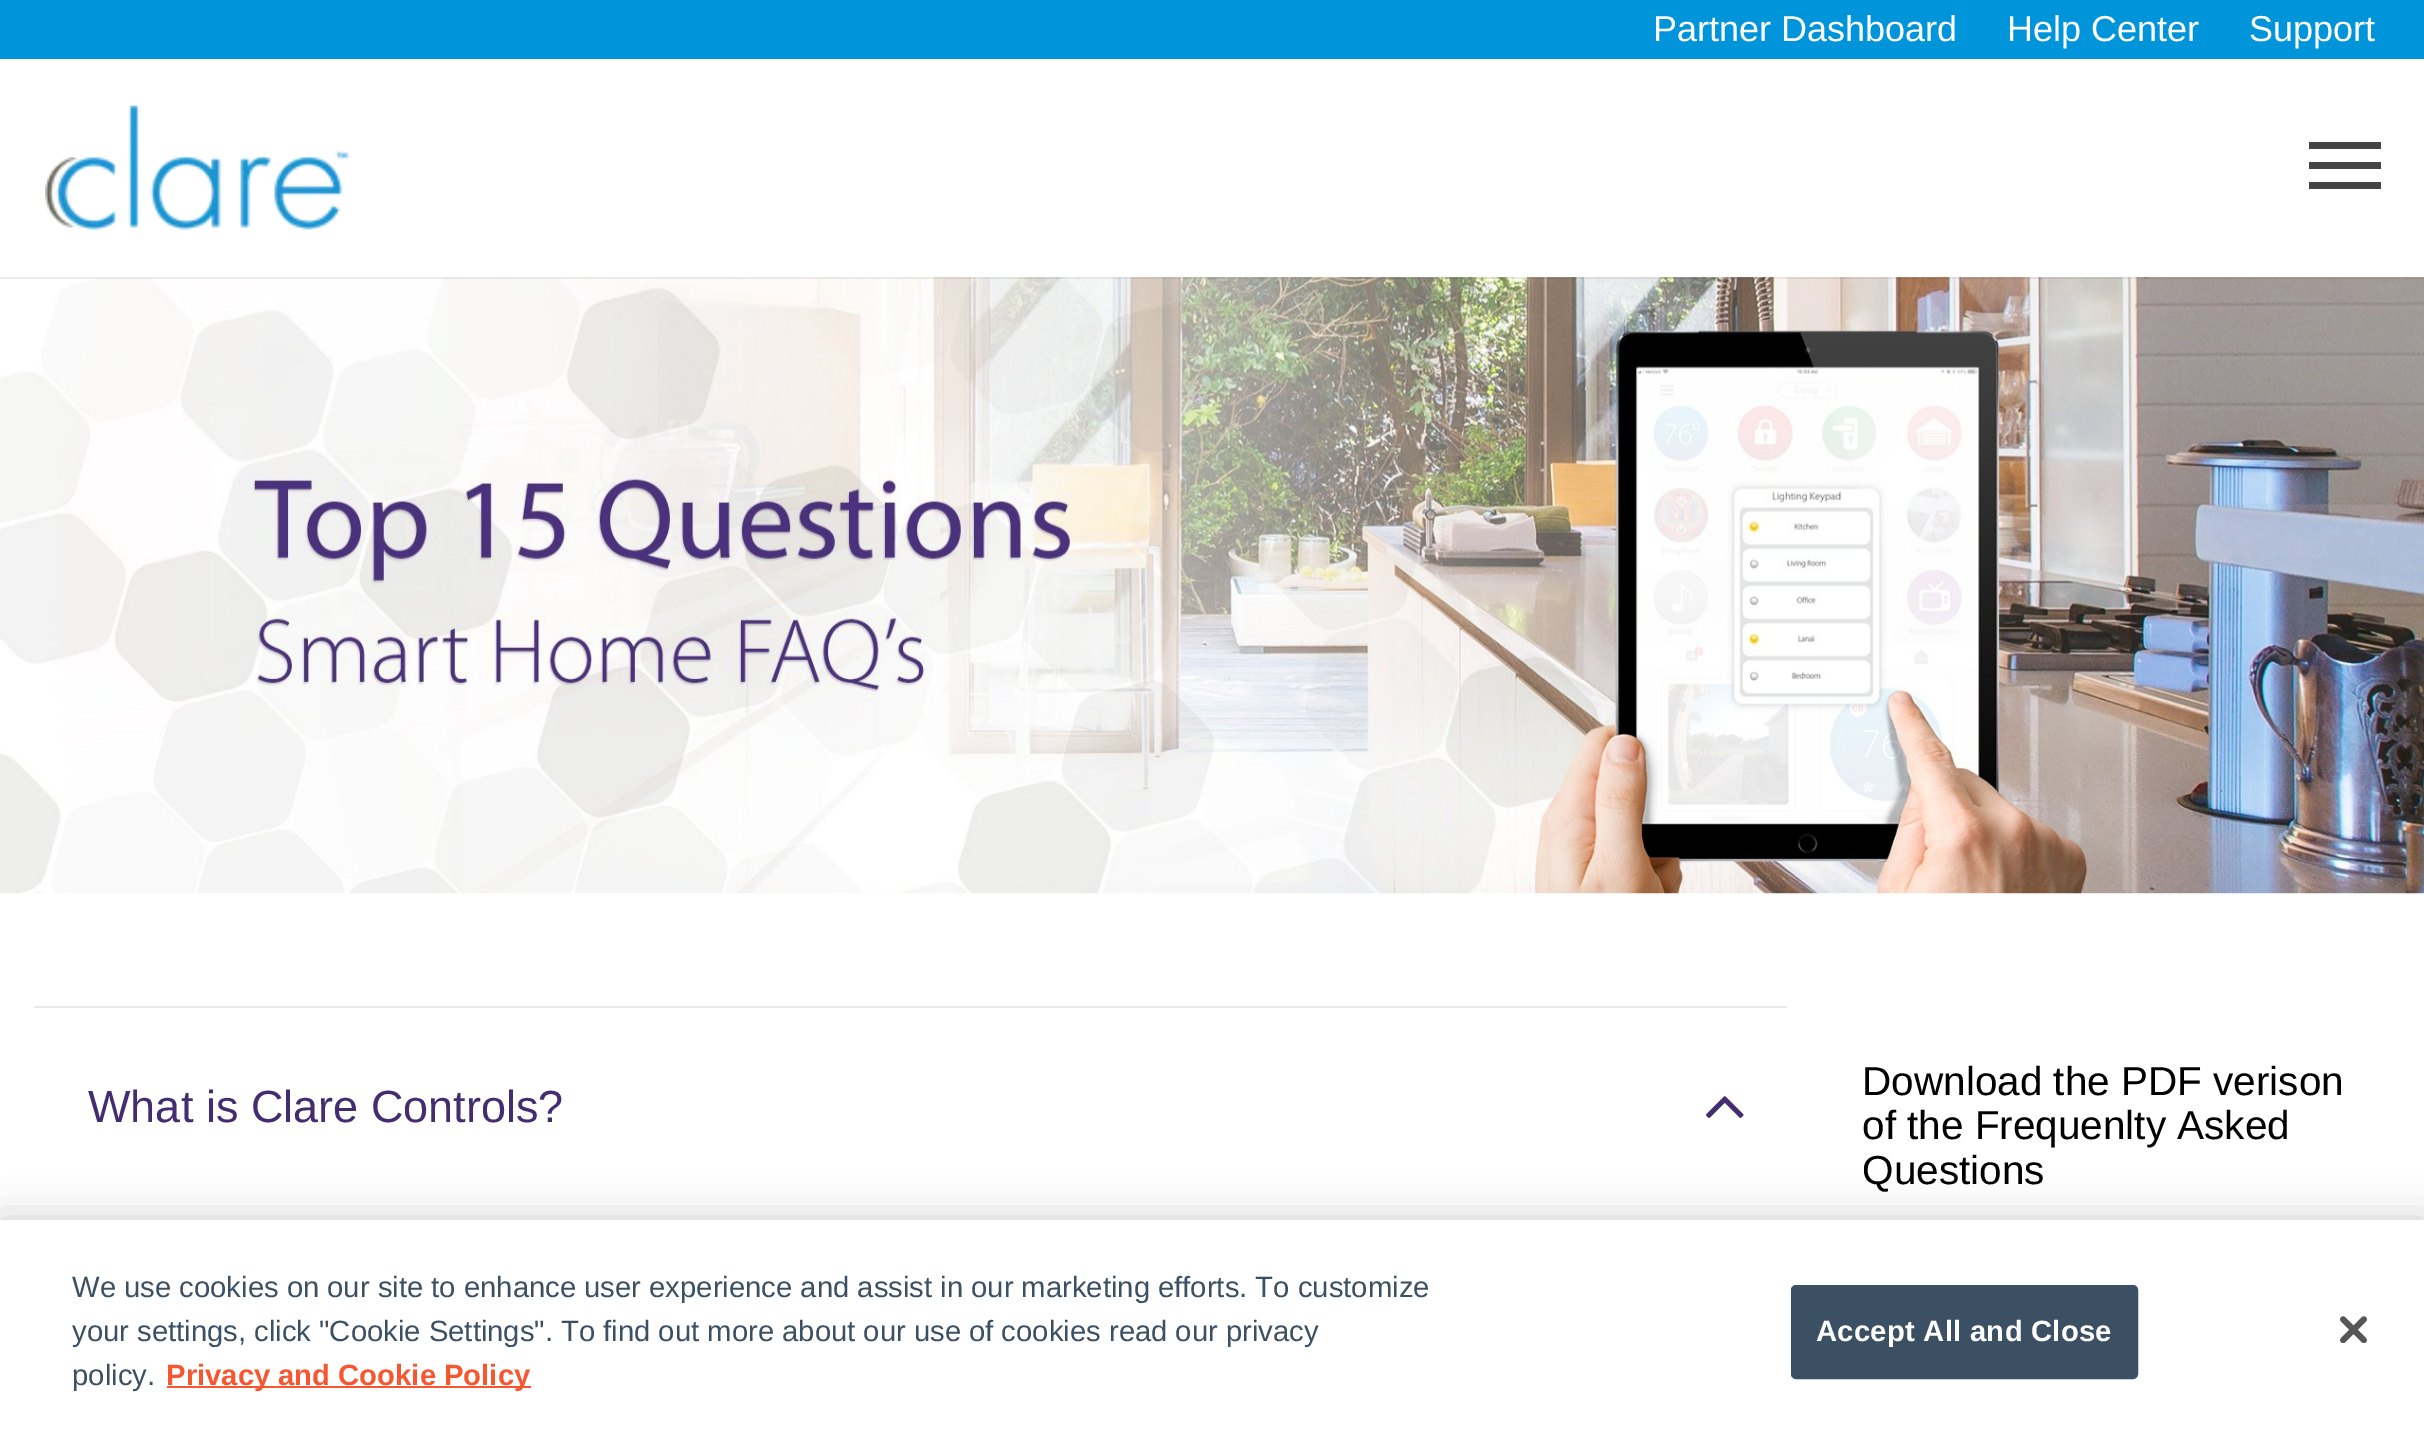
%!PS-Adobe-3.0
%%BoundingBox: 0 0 2424 1447
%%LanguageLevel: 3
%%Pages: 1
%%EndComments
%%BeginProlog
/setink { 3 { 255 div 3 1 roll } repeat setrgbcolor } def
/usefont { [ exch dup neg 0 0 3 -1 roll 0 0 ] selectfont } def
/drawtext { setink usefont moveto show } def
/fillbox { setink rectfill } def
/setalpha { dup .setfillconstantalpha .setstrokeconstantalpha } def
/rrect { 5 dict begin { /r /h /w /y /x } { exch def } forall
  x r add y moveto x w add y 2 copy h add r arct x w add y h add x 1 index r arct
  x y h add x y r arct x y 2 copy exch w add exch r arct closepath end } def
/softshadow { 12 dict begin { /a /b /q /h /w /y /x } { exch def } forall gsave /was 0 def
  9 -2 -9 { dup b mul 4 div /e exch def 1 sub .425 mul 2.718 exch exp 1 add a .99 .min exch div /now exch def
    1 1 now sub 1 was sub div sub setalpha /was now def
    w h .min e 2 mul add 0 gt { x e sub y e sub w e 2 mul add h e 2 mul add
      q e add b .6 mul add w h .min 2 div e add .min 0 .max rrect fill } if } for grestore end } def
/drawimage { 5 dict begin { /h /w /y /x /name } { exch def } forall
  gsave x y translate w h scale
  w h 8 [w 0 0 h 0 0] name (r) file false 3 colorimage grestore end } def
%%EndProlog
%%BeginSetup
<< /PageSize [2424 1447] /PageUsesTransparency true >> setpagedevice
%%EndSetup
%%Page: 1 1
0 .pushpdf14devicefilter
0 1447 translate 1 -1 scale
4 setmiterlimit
0 0 2424 1447 255 255 255 fillbox
0 0 2424 59 0 149 218 fillbox
(Partner Dashboard) 1653 41 /LiberationSans-Regular 36 255 255 255 drawtext
(Help Center) 2007 41 /LiberationSans-Regular 36 255 255 255 drawtext
(Support) 2249 41 /LiberationSans-Regular 36 255 255 255 drawtext
(assets/img1.rgb) 45 105 304 125 drawimage
2309 142 72 7 68 68 68 fillbox
2309 162 72 7 68 68 68 fillbox
2309 182 72 7 68 68 68 fillbox
(assets/img2.rgb) 0 277 2424 617 drawimage
0.07 setalpha
0 277 2424 2 0 0 0 fillbox
1 setalpha
34 1006 1753 2 232 233 235 fillbox
(What is Clare Controls?) 88 1122 /LiberationSans-Regular 45 67 44 112 drawtext
(assets/img3.rgb) 1706 1096 38 22 drawimage
(Download the PDF verison) 1862 1095 /LiberationSans-Regular 40.5 0 0 0 drawtext
(of the Frequenlty Asked) 1862 1139 /LiberationSans-Regular 40.5 0 0 0 drawtext
(Questions) 1862 1184 /LiberationSans-Regular 40.5 0 0 0 drawtext
0 1220 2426 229 0 20 0.2 softshadow
0 1220 2424 227 255 255 255 fillbox
(We use cookies on our site to enhance user experience and assist in our marketing efforts. To customize) 72 1297 /LiberationSans-Regular 29.25 60 80 100 drawtext
(your settings, click "Cookie Settings". To find out more about our use of cookies read our privacy) 72 1341 /LiberationSans-Regular 29.25 60 80 100 drawtext
(policy.) 72 1385 /LiberationSans-Regular 29.25 60 80 100 drawtext
167 1386 364 2 247 86 49 fillbox
(Privacy and Cookie Policy) 166 1385 /LiberationSans-Bold 29.25 247 86 49 drawtext
60 80 100 setink
1792 1286 345 92 4 rrect gsave fill grestore
2 setlinewidth
stroke
255 255 255 setink
1816 1341 moveto 0.25 0 (Accept All and Close) ashow
(assets/img4.rgb) 2340 1316 27 27 drawimage
.poppdf14devicefilter showpage
%%EOF
